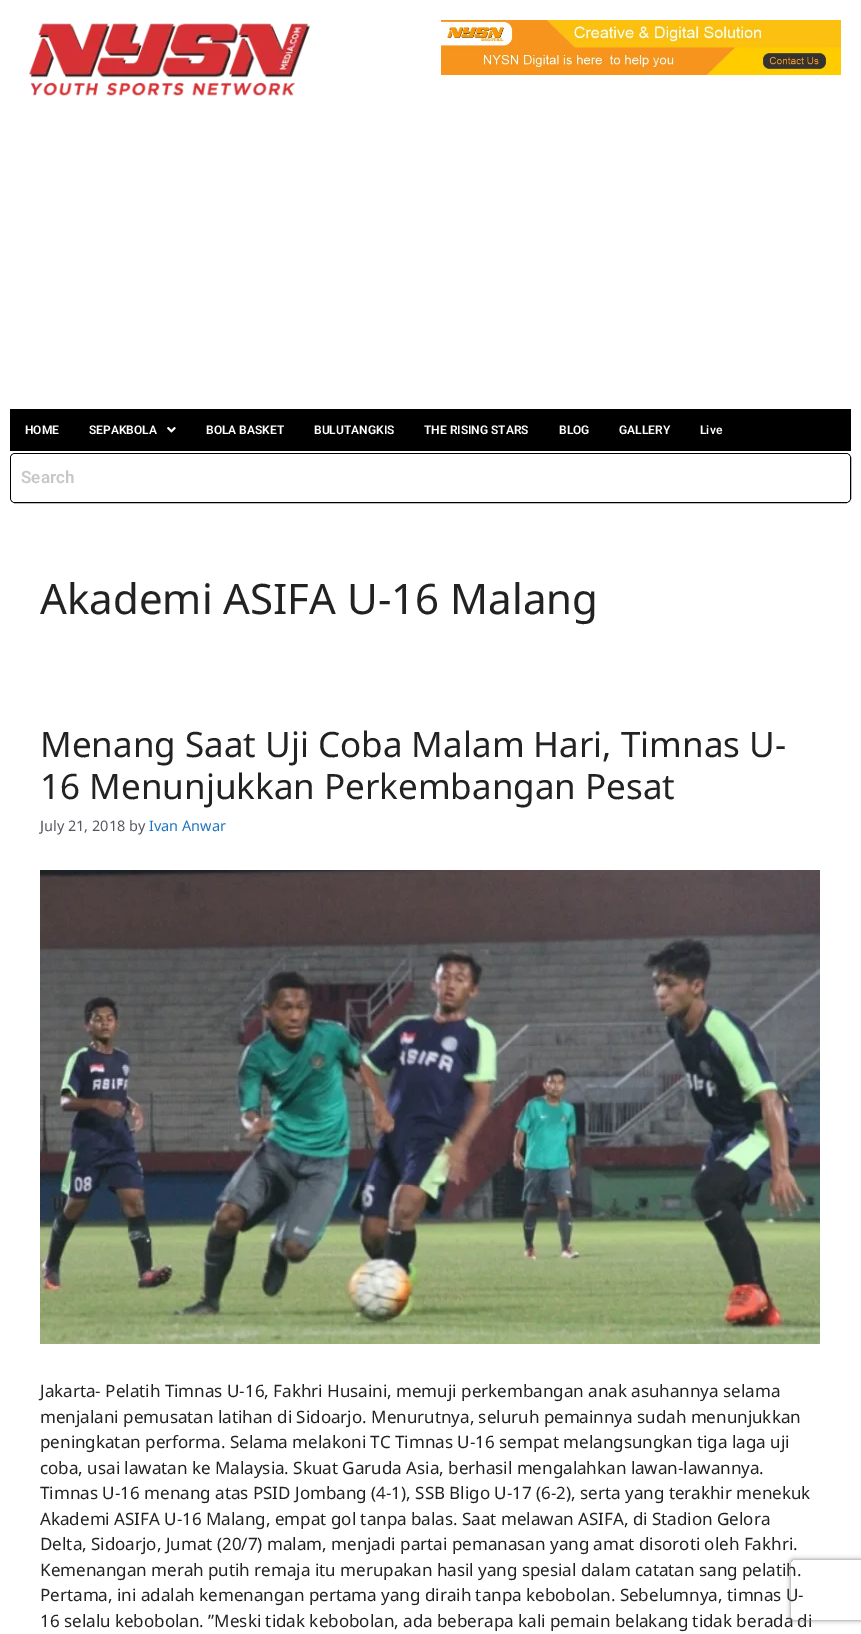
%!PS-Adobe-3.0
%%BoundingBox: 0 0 861 1634
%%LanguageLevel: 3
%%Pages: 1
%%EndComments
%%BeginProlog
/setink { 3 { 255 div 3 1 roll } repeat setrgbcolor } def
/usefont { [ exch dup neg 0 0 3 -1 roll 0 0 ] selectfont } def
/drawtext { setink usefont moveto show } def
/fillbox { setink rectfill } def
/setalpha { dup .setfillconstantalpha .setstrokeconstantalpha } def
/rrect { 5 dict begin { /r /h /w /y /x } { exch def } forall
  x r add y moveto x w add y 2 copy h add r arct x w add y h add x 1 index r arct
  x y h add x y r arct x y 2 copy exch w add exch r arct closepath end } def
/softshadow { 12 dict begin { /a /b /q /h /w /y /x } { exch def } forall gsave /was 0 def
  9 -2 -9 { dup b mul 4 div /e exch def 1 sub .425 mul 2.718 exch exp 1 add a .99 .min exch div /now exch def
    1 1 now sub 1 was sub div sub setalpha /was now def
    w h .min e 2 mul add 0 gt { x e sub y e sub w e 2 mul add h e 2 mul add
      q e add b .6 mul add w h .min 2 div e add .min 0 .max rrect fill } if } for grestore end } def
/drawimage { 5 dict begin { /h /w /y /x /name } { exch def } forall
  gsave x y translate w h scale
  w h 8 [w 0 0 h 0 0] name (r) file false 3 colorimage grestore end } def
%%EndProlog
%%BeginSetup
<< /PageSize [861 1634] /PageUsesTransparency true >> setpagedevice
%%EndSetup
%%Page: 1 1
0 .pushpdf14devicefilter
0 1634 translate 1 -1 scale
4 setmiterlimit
0 0 861 1634 255 255 255 fillbox
(assets/img1.rgb) 29 23 281 73 drawimage
(assets/img2.rgb) 441 20 400 55 drawimage
10 409 841 42 0 0 0 fillbox
(HOME) 25 434 /Roboto-SemiBold 12 255 255 255 drawtext
(SEPAKBOLA) 89 434 /Roboto-SemiBold 12 255 255 255 drawtext
(assets/img3.rgb) 167 427 9 6 drawimage
(BOLA BASKET) 206 434 /Roboto-SemiBold 12 255 255 255 drawtext
(BULUTANGKIS) 314 434 /Roboto-SemiBold 12 255 255 255 drawtext
(THE RISING STARS) 424 434 /Roboto-SemiBold 12 255 255 255 drawtext
(BLOG) 559 434 /Roboto-SemiBold 12 255 255 255 drawtext
(GALLERY) 619 434 /Roboto-SemiBold 12 255 255 255 drawtext
(Live) 700 434 /Roboto-SemiBold 12 255 255 255 drawtext
0 0 0 setink
10.5 453.5 840 49 4.5 rrect stroke
255 255 255 setink
11 454 839 48 4 rrect fill
(Search) 21 483 /Roboto-SemiBold 17 199 199 199 drawtext
(Akademi ASIFA U-16 Malang) 40 614 /NotoSans-Regular 42 34 34 34 drawtext
(Menang Saat Uji Coba Malam Hari, Timnas U-) 40 757 /NotoSans-Regular 35 34 34 34 drawtext
(16 Menunjukkan Perkembangan Pesat) 40 799 /NotoSans-Regular 35 34 34 34 drawtext
(July 21, 2018 by) 40 831 /NotoSans-Regular 14.5 87 87 96 drawtext
(Ivan Anwar) 149 831 /NotoSans-Regular 14.5 30 115 190 drawtext
(assets/img4.rgb) 40 870 780 474 drawimage
(Jakarta- Pelatih Timnas U-16, Fakhri Husaini, memuji perkembangan anak asuhannya selama) 40 1397 /NotoSans-Regular 17 34 34 34 drawtext
(menjalani pemusatan latihan di Sidoarjo. Menurutnya, seluruh pemainnya sudah menunjukkan) 40 1423 /NotoSans-Regular 17 34 34 34 drawtext
(peningkatan performa. Selama melakoni TC Timnas U-16 sempat melangsungkan tiga laga uji) 40 1448 /NotoSans-Regular 17 34 34 34 drawtext
(coba, usai lawatan ke Malaysia. Skuat Garuda Asia, berhasil mengalahkan lawan-lawannya.) 40 1474 /NotoSans-Regular 17 34 34 34 drawtext
(Timnas U-16 menang atas PSID Jombang \(4-1\), SSB Bligo U-17 \(6-2\), serta yang terakhir menekuk) 40 1499 /NotoSans-Regular 17 34 34 34 drawtext
(Akademi ASIFA U-16 Malang, empat gol tanpa balas. Saat melawan ASIFA, di Stadion Gelora) 40 1525 /NotoSans-Regular 17 34 34 34 drawtext
(Delta, Sidoarjo, Jumat \(20/7\) malam, menjadi partai pemanasan yang amat disoroti oleh Fakhri.) 40 1550 /NotoSans-Regular 17 34 34 34 drawtext
(Kemenangan merah putih remaja itu merupakan hasil yang spesial dalam catatan sang pelatih.) 40 1576 /NotoSans-Regular 17 34 34 34 drawtext
(Pertama, ini adalah kemenangan pertama yang diraih tanpa kebobolan. Sebelumnya, timnas U-) 40 1601 /NotoSans-Regular 17 34 34 34 drawtext
(16 selalu kebobolan. ”Meski tidak kebobolan, ada beberapa kali pemain belakang tidak berada di) 40 1627 /NotoSans-Regular 17 34 34 34 drawtext
gsave
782 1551 moveto 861 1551 lineto 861 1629 lineto 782 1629 lineto closepath 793 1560 moveto 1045 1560 lineto 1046 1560 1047 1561 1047 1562 curveto 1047 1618 lineto 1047 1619 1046 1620 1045 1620 curveto 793 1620 lineto 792 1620 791 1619 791 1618 curveto 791 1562 lineto 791 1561 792 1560 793 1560 curveto closepath eoclip newpath
128 128 128 setink
791 1560 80 60 2 2.5 1 softshadow
grestore
.poppdf14devicefilter showpage
%%EOF
